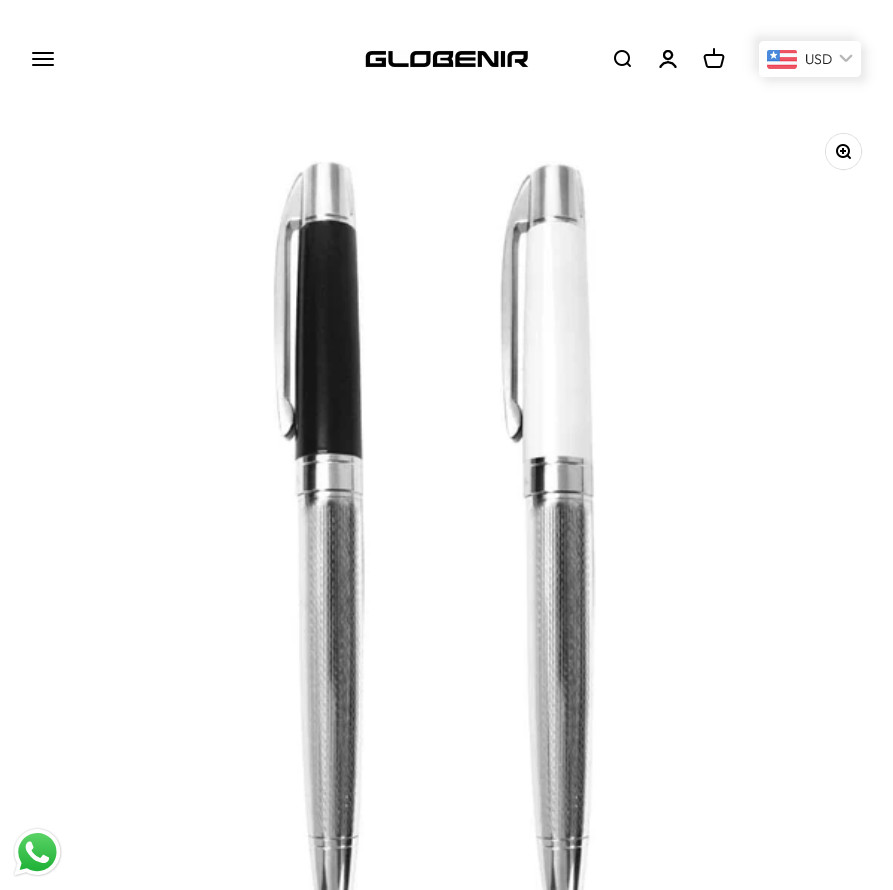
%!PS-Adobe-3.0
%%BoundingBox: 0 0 893 890
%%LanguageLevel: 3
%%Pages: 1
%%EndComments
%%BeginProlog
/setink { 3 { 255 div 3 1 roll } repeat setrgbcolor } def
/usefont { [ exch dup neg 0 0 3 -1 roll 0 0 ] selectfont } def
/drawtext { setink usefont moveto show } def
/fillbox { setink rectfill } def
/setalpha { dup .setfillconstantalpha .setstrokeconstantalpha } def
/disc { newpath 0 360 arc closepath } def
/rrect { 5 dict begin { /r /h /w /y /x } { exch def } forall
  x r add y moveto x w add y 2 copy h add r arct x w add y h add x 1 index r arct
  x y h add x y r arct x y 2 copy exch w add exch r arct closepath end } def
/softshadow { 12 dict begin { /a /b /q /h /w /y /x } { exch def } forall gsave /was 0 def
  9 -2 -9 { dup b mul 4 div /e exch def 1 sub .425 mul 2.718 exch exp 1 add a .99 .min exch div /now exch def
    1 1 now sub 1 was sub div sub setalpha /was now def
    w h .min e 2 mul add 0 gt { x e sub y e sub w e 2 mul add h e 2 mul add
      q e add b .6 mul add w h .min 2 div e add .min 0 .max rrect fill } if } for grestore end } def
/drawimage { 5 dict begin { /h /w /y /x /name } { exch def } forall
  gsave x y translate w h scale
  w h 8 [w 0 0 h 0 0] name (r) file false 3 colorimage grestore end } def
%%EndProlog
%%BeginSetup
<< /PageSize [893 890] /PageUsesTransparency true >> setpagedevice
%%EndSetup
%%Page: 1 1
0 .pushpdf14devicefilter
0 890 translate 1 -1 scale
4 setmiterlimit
0 0 893 890 255 255 255 fillbox
(assets/img1.rgb) 32 52 22 14 drawimage
(assets/img2.rgb) 364 50 165 18 drawimage
(assets/img3.rgb) 614 50 17 17 drawimage
0 0 0 setink
2 setlinewidth
668 55 4 disc stroke
1 setlinecap
660.5 67 moveto 663.5 60.5 672.5 60.5 675.5 67 curveto stroke
(assets/img4.rgb) 703 48 22 20 drawimage
232 232 232 setink
754 36 102 36 5 5 1 softshadow
764 46 102 36 5 5 1 softshadow
255 255 255 setink
759 41 102 36 5 rrect fill
(assets/img5.rgb) 767 50 30 19 drawimage
(USD) 805 64 /Outfit-Light 14 30 30 30 drawtext
183 183 183 setink
1.8 setlinewidth
1 setlinejoin
840.5 55.5 moveto 846 61 lineto 851.5 55.5 lineto stroke
(assets/img6.rgb) 13 827 49 50 drawimage
224 224 224 setink
1 setlinewidth
0 setlinecap
0 setlinejoin
843.5 151.5 18 disc stroke
255 255 255 setink
843.5 151.5 17.5 disc fill
(assets/img7.rgb) 836 144 15 15 drawimage
(assets/img8.rgb) 273 161 323 729 drawimage
.poppdf14devicefilter showpage
%%EOF
